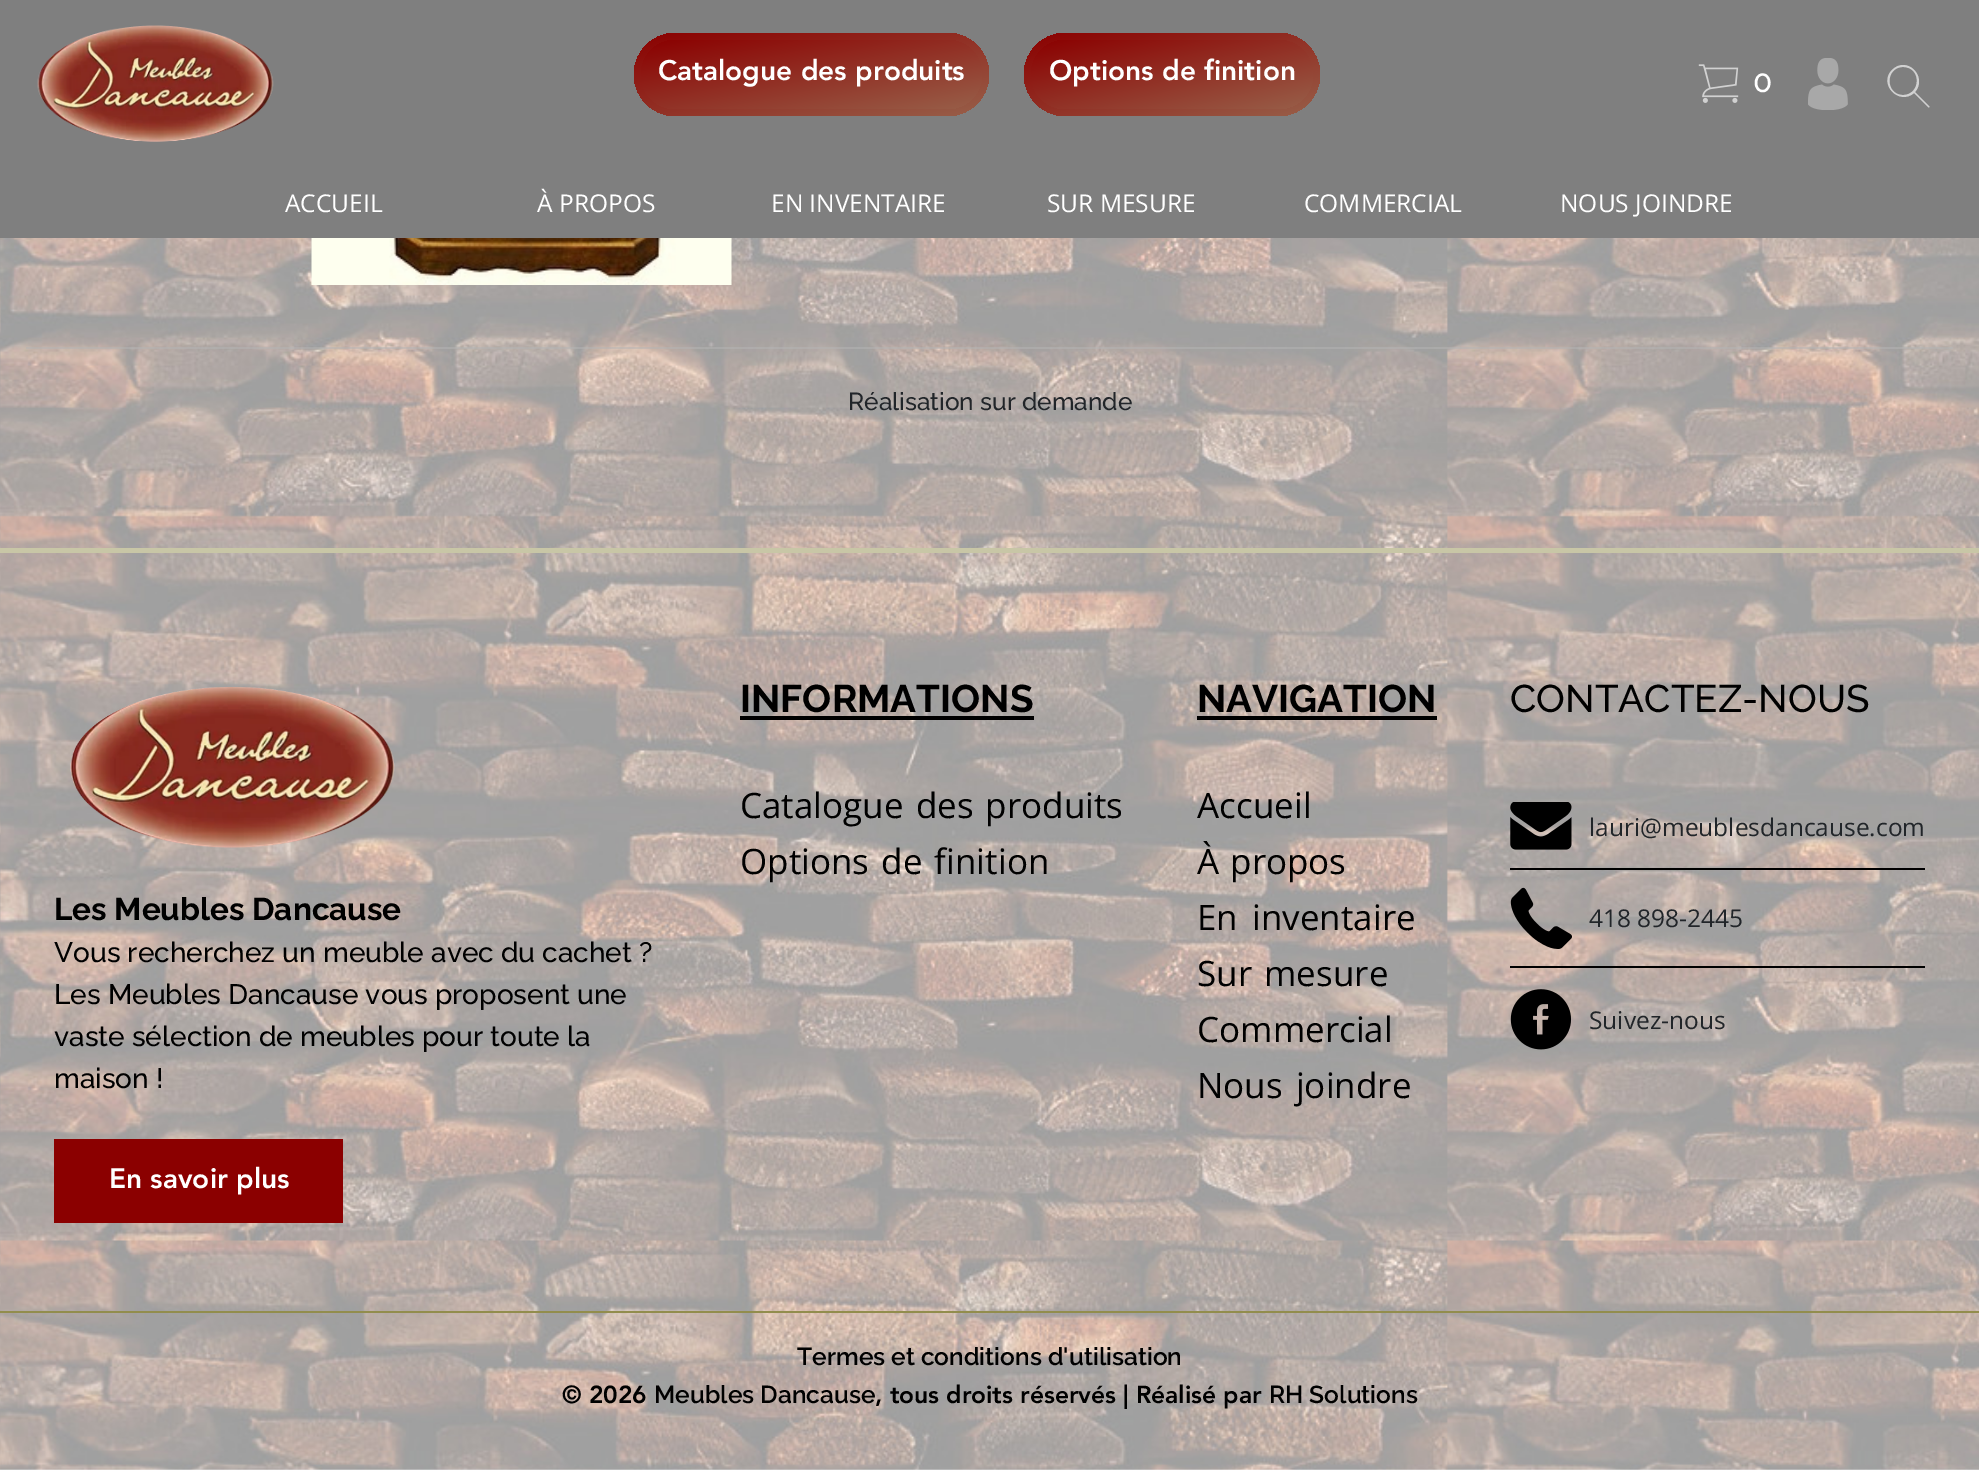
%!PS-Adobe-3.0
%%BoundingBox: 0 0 1979 1470
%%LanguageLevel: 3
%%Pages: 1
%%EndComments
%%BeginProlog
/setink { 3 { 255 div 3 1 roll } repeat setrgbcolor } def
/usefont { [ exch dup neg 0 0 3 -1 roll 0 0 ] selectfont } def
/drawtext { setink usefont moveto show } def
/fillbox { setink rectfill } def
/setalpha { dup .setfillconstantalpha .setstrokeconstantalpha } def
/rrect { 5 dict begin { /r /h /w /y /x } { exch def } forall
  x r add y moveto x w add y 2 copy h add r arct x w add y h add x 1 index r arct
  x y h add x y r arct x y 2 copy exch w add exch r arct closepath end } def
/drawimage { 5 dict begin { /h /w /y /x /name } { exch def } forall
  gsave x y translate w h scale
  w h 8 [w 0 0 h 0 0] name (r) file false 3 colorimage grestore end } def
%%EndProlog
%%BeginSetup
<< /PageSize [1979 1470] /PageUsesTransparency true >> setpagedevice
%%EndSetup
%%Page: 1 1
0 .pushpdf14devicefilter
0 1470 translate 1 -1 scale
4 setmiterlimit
0 0 1979 1470 255 255 255 fillbox
(assets/img1.rgb) 0 238 1979 1232 drawimage
0 0 1979 238 127 127 127 fillbox
(assets/img2.rgb) 37 25 237 117 drawimage
gsave 634 33 355 83 41.5 rrect clip newpath
<< /ShadingType 2 /ColorSpace /DeviceRGB /Coords [793 -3.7 829 152] /Extend [true true] /Function << /FunctionType 2 /Domain [0 1] /C0 [0.545 0 0] /C1 [0.596 0.373 0.286] /N 1 >> >> shfill grestore
gsave 641 40 341 69 34.5 rrect clip newpath
<< /ShadingType 2 /ColorSpace /DeviceRGB /Coords [798 9 824 140] /Extend [true true] /Function << /FunctionType 2 /Domain [0 1] /C0 [0.545 0 0] /C1 [0.596 0.373 0.286] /N 1 >> >> shfill grestore
(Catalogue des produits) 658 80 /Avenir-Black 28 255 255 255 drawtext
gsave 1024 33 296 83 41.5 rrect clip newpath
<< /ShadingType 2 /ColorSpace /DeviceRGB /Coords [1150 -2 1193 151] /Extend [true true] /Function << /FunctionType 2 /Domain [0 1] /C0 [0.545 0 0] /C1 [0.596 0.373 0.286] /N 1 >> >> shfill grestore
gsave 1031 40 282 69 34.5 rrect clip newpath
<< /ShadingType 2 /ColorSpace /DeviceRGB /Coords [1156 10 1187 139] /Extend [true true] /Function << /FunctionType 2 /Domain [0 1] /C0 [0.545 0 0] /C1 [0.596 0.373 0.286] /N 1 >> >> shfill grestore
(Options de finition) 1049 80 /Avenir-Black 28 255 255 255 drawtext
(assets/img3.rgb) 1698 64 41 39 drawimage
(0) 1753 92 /Raleway-Medium 31.5 255 255 255 drawtext
(assets/img4.rgb) 1808 58 40 52 drawimage
209 209 209 setink
1929 106 moveto 1915 92 lineto 1928 77 1907 55 1892 70 curveto 1878 84 1899 106 1914 93 curveto 1928 107 lineto 1929 108 1930 107 1929 106 curveto closepath 1903 95 moveto 1885 95 1885 67 1903 67 curveto 1922 67 1921 95 1903 95 curveto closepath fill
(ACCUEIL) 285 212 /OpenSans-Regular 24.5 255 255 255 drawtext
(À PROPOS) 537 212 /OpenSans-Regular 24.5 255 255 255 drawtext
(EN INVENTAIRE) 771 212 /OpenSans-Regular 24.5 255 255 255 drawtext
(SUR MESURE) 1047 212 /OpenSans-Regular 24.5 255 255 255 drawtext
(COMMERCIAL) 1304 212 /OpenSans-Regular 24.5 255 255 255 drawtext
(NOUS JOINDRE) 1560 212 /OpenSans-Regular 24.5 255 255 255 drawtext
(assets/img5.rgb) 311 238 421 47 drawimage
0.5 setalpha
26 347 1927 2 180 180 180 fillbox
1 setalpha
(Réalisation sur demande) 848 410 /Raleway-Medium 24.5 33 37 41 drawtext
0 548 1979 5 200 198 166 fillbox
(assets/img6.rgb) 70 687 325 161 drawimage
(Les Meubles Dancause) 54 920 /Raleway-Bold 31.5 0 0 0 drawtext
(Vous recherchez un meuble avec du cachet ?) 54 962 /Raleway-Medium 28 0 0 0 drawtext
(Les Meubles Dancause vous proposent une) 54 1004 /Raleway-Medium 28 0 0 0 drawtext
(vaste sélection de meubles pour toute la) 54 1046 /Raleway-Medium 28 0 0 0 drawtext
(maison !) 54 1088 /Raleway-Medium 28 0 0 0 drawtext
54 1139 289 84 139 0 0 fillbox
(En savoir plus) 109 1188 /Avenir-Black 28 255 255 255 drawtext
(INFORMATIONS) 740 712 /Raleway-Bold 38.5 0 0 0 drawtext
740 716 294 4 0 0 0 fillbox
/OpenSans-Regular 35 usefont
740 818 moveto 3 0 32 (Catalogue des produits) widthshow
740 874 moveto 3 0 32 (Options de finition) widthshow
(NAVIGATION) 1197 712 /Raleway-Bold 38.5 0 0 0 drawtext
1197 716 240 4 0 0 0 fillbox
(Accueil) 1197 818 /OpenSans-Regular 35 0 0 0 drawtext
1197 874 moveto 2 0 32 (À propos) widthshow
1197 930 moveto 5 0 32 (En inventaire) widthshow
1197 986 moveto 3 0 32 (Sur mesure) widthshow
(Commercial) 1197 1042 /OpenSans-Regular 35 0 0 0 drawtext
1197 1098 moveto 4 0 32 (Nous joindre) widthshow
(CONTACTEZ-NOUS) 1510 712 /Raleway-Medium 38.5 0 0 0 drawtext
1510 868 415 2 0 0 0 fillbox
(assets/img7.rgb) 1510 802 62 48 drawimage
(lauri@meublesdancause.com) 1589 836 /OpenSans-Regular 24.5 33 37 41 drawtext
1510 966 415 2 0 0 0 fillbox
(assets/img8.rgb) 1510 887 62 62 drawimage
(418 898-2445) 1589 927 /OpenSans-Regular 24.5 33 37 41 drawtext
(assets/img9.rgb) 1510 989 62 61 drawimage
(Suivez-nous) 1589 1029 /OpenSans-Regular 24.5 33 37 41 drawtext
0 1311 1979 2 146 141 77 fillbox
(Termes et conditions d'utilisation) 797 1365 /Raleway-SemiBold 24.5 0 0 0 drawtext
(© 2026) 562 1403 /Avenir-Black 24.5 0 0 0 drawtext
(Meubles Dancause) 654 1403 /Raleway-SemiBold 24.5 0 0 0 drawtext
(, tous droits réservés | Réalisé par) 875 1403 /Avenir-Black 24.5 0 0 0 drawtext
(RH Solutions) 1269 1403 /Raleway-SemiBold 24.5 0 0 0 drawtext
.poppdf14devicefilter showpage
%%EOF
